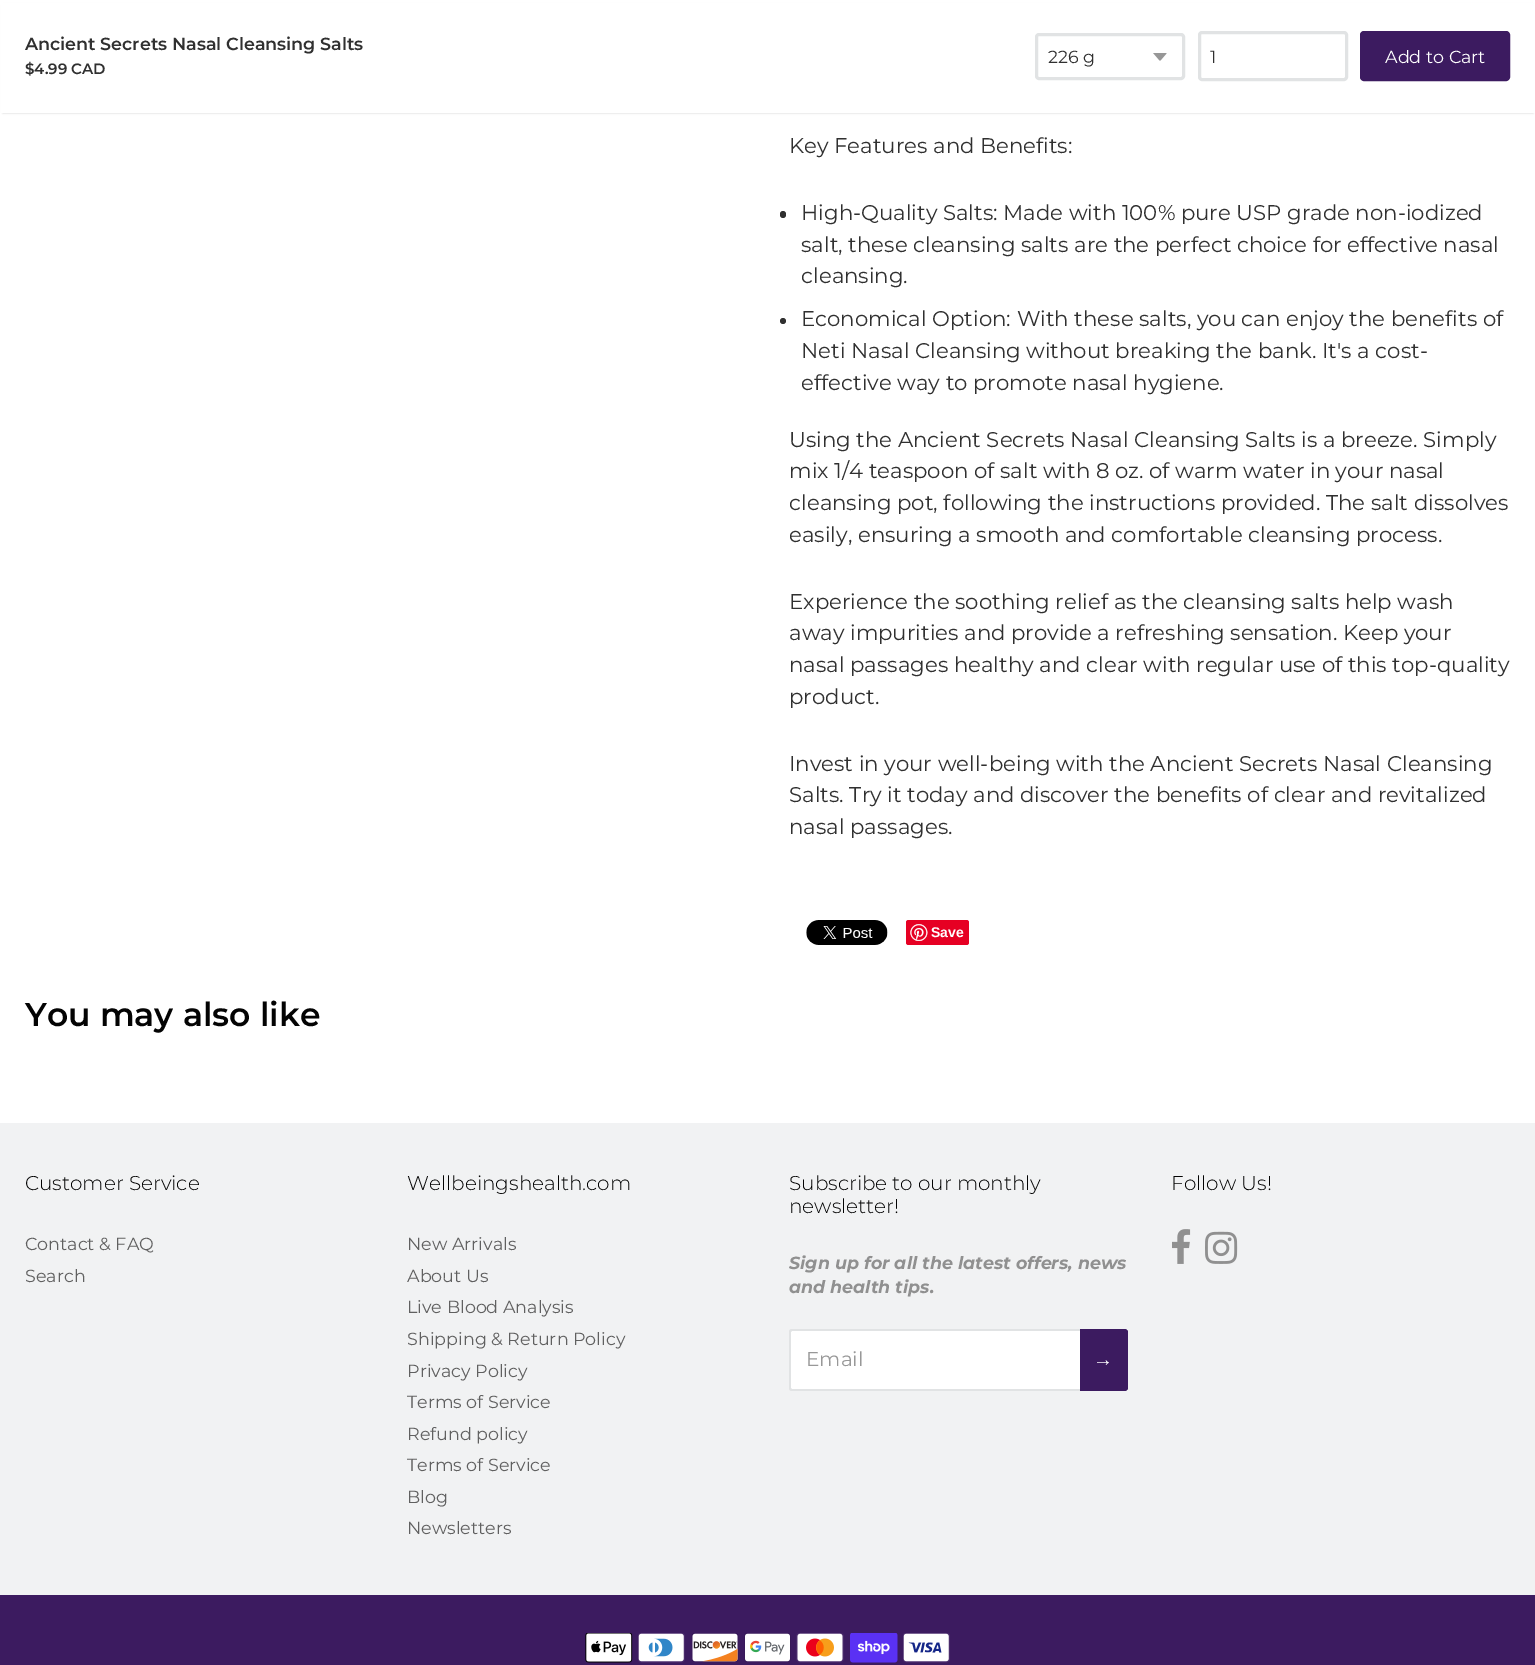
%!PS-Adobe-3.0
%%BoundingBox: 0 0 1535 1665
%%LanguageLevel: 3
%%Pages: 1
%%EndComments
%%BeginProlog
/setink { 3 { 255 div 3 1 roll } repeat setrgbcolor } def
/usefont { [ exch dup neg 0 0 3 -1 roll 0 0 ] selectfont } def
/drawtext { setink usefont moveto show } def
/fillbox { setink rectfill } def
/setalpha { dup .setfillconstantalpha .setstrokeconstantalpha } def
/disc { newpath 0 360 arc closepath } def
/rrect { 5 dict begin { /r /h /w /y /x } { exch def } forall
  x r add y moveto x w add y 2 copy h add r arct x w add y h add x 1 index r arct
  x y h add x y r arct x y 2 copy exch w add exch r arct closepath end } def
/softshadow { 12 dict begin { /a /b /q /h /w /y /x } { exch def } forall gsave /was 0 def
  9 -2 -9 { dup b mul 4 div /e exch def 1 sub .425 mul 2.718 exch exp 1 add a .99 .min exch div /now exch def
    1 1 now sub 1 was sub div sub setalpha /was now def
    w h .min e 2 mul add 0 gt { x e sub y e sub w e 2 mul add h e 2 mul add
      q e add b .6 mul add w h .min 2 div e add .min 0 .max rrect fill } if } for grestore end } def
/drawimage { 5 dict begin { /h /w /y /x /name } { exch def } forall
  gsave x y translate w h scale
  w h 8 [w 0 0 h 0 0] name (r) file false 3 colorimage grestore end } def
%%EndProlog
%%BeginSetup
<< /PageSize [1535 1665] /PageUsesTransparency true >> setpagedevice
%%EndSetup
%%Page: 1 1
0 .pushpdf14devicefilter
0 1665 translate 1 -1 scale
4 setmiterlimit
0 0 1535 1665 255 255 255 fillbox
0 0 0 setink
3 5 1530 108 0 1 0.2 softshadow
1 3 1534 110 255 255 255 fillbox
(Ancient Secrets Nasal Cleansing Salts) 25 50 /Montserrat-SemiBold 17.5 48 48 48 drawtext
($4.99 CAD) 25 74 /Montserrat-SemiBold 15 48 48 48 drawtext
(assets/img1.rgb) 1153 53 14 8 drawimage
225 227 228 setink
3 setlinewidth
1036.5 34.5 147 44 2.5 rrect stroke
(226 g) 1048 63 /Montserrat-Regular 17.5 48 48 48 drawtext
225 227 228 setink
1199.5 32.5 147 47 2.5 rrect stroke
(1) 1210 63 /Montserrat-Regular 17.5 48 48 48 drawtext
60 27 96 setink
1361.5 32.5 147 47 2.5 rrect gsave fill grestore
stroke
(Add to Cart) 1385 63 /Montserrat-Regular 17.5 255 255 255 drawtext
(Key Features and Benefits:) 789 153 /Montserrat-Regular 21.25 48 48 48 drawtext
780 211 6 7 3 rrect fill
(High-Quality Salts: Made with 100% pure USP grade non-iodized) 801 220 /Montserrat-Regular 21.25 48 48 48 drawtext
(salt, these cleansing salts are the perfect choice for effective nasal) 801 252 /Montserrat-Regular 21.25 48 48 48 drawtext
(cleansing.) 801 283 /Montserrat-Regular 21.25 48 48 48 drawtext
783 321 3 disc fill
(Economical Option: With these salts, you can enjoy the benefits of) 801 326 /Montserrat-Regular 21.25 48 48 48 drawtext
(Neti Nasal Cleansing without breaking the bank. It's a cost-) 801 358 /Montserrat-Regular 21.25 48 48 48 drawtext
(effective way to promote nasal hygiene.) 801 390 /Montserrat-Regular 21.25 48 48 48 drawtext
(Using the Ancient Secrets Nasal Cleansing Salts is a breeze. Simply) 789 447 /Montserrat-Regular 21.25 48 48 48 drawtext
(mix 1/4 teaspoon of salt with 8 oz. of warm water in your nasal) 789 478 /Montserrat-Regular 21.25 48 48 48 drawtext
(cleansing pot, following the instructions provided. The salt dissolves) 789 510 /Montserrat-Regular 21.25 48 48 48 drawtext
(easily, ensuring a smooth and comfortable cleansing process.) 789 542 /Montserrat-Regular 21.25 48 48 48 drawtext
(Experience the soothing relief as the cleansing salts help wash) 789 609 /Montserrat-Regular 21.25 48 48 48 drawtext
(away impurities and provide a refreshing sensation. Keep your) 789 640 /Montserrat-Regular 21.25 48 48 48 drawtext
(nasal passages healthy and clear with regular use of this top-quality) 789 672 /Montserrat-Regular 21.25 48 48 48 drawtext
(product.) 789 704 /Montserrat-Regular 21.25 48 48 48 drawtext
(Invest in your well-being with the Ancient Secrets Nasal Cleansing) 789 771 /Montserrat-Regular 21.25 48 48 48 drawtext
(Salts. Try it today and discover the benefits of clear and revitalized) 789 802 /Montserrat-Regular 21.25 48 48 48 drawtext
(nasal passages.) 789 834 /Montserrat-Regular 21.25 48 48 48 drawtext
(assets/img2.rgb) 806 920 82 25 drawimage
230 0 35 setink
906 920 63 25 2.5 rrect fill
(assets/img3.rgb) 910 924 18 17 drawimage
(Save) 931 937 /LiberationSans-Bold 14 255 255 255 drawtext
(You may also like) 25 1026 /Montserrat-SemiBold 33 3 3 3 drawtext
0 1123 1535 472 241 242 243 fillbox
(Customer Service) 25 1190 /Montserrat-Light 20 3 3 3 drawtext
(Contact & FAQ) 25 1250 /Montserrat-Regular 17.5 96 96 96 drawtext
(Search) 25 1282 /Montserrat-Regular 17.5 96 96 96 drawtext
(Wellbeingshealth.com) 407 1190 /Montserrat-Light 20 3 3 3 drawtext
(New Arrivals) 407 1250 /Montserrat-Regular 17.5 96 96 96 drawtext
(About Us) 407 1282 /Montserrat-Regular 17.5 96 96 96 drawtext
(Live Blood Analysis) 407 1313 /Montserrat-Regular 17.5 96 96 96 drawtext
(Shipping & Return Policy) 407 1345 /Montserrat-Regular 17.5 96 96 96 drawtext
(Privacy Policy) 407 1377 /Montserrat-Regular 17.5 96 96 96 drawtext
(Terms of Service) 407 1408 /Montserrat-Regular 17.5 96 96 96 drawtext
(Refund policy) 407 1440 /Montserrat-Regular 17.5 96 96 96 drawtext
(Terms of Service) 407 1471 /Montserrat-Regular 17.5 96 96 96 drawtext
(Blog) 407 1503 /Montserrat-Regular 17.5 96 96 96 drawtext
(Newsletters) 407 1534 /Montserrat-Regular 17.5 96 96 96 drawtext
(Subscribe to our monthly) 789 1190 /Montserrat-Light 20 3 3 3 drawtext
(newsletter!) 789 1213 /Montserrat-Light 20 3 3 3 drawtext
(Sign up for all the latest offers, news) 789 1269 /Montserrat-BoldItalic 17.5 144 144 144 drawtext
(and health tips.) 789 1293 /Montserrat-BoldItalic 17.5 144 144 144 drawtext
255 255 255 setink
793 1329 moveto 1080 1329 lineto 1080 1391 lineto 793 1391 lineto 791 1391 789 1389 789 1387 curveto 789 1333 lineto 789 1331 791 1329 793 1329 curveto closepath fill
225 227 228 setink
792 1329 moveto 1080 1329 lineto 1080 1391 lineto 792 1391 lineto 790 1391 789 1390 789 1388 curveto 789 1332 lineto 789 1330 790 1329 792 1329 curveto closepath 792 1331 moveto 1080 1331 lineto 1080 1389 lineto 792 1389 lineto 792 1389 791 1388 791 1388 curveto 791 1332 lineto 791 1332 792 1331 792 1331 curveto closepath eofill
(Email) 806 1366 /Montserrat-Regular 20 152 152 152 drawtext
60 27 96 setink
1080 1329 moveto 1124 1329 lineto 1126 1329 1128 1331 1128 1333 curveto 1128 1387 lineto 1128 1389 1126 1391 1124 1391 curveto 1080 1391 lineto closepath fill
1080 1329 moveto 1124 1329 lineto 1126 1329 1128 1330 1128 1332 curveto 1128 1388 lineto 1128 1390 1126 1391 1124 1391 curveto 1080 1391 lineto closepath 1080 1331 moveto 1124 1331 lineto 1124 1331 1125 1332 1125 1332 curveto 1125 1388 lineto 1125 1388 1124 1389 1124 1389 curveto 1080 1389 lineto closepath eofill
(→) 1093 1366 /LiberationSans-Regular 20 255 255 255 drawtext
(Follow Us!) 1171 1190 /Montserrat-Light 20 3 3 3 drawtext
(assets/img4.rgb) 1172 1229 19 35 drawimage
(assets/img5.rgb) 1205 1231 33 33 drawimage
0 1595 1535 70 60 27 96 fillbox
(assets/img6.rgb) 585 1633 48 30 drawimage
(assets/img7.rgb) 638 1633 47 30 drawimage
(assets/img8.rgb) 691 1633 48 29 drawimage
(assets/img9.rgb) 744 1633 47 29 drawimage
(assets/img10.rgb) 796 1633 48 30 drawimage
(assets/img11.rgb) 850 1633 48 30 drawimage
(assets/img12.rgb) 903 1633 47 30 drawimage
.poppdf14devicefilter showpage
%%EOF
